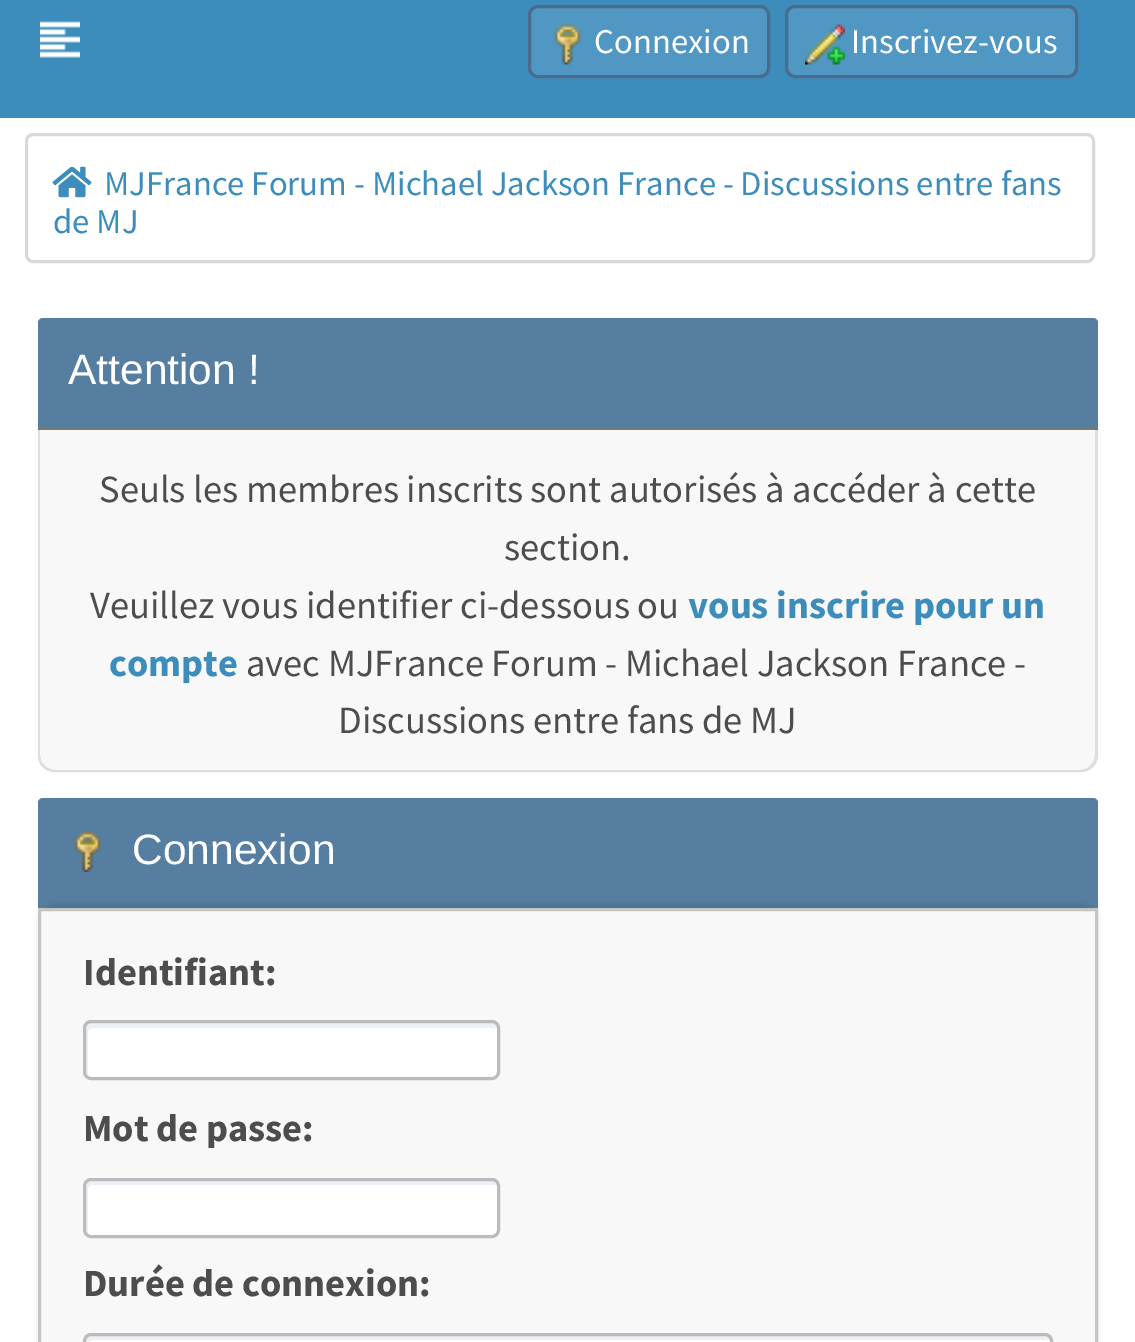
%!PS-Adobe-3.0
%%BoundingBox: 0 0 1135 1342
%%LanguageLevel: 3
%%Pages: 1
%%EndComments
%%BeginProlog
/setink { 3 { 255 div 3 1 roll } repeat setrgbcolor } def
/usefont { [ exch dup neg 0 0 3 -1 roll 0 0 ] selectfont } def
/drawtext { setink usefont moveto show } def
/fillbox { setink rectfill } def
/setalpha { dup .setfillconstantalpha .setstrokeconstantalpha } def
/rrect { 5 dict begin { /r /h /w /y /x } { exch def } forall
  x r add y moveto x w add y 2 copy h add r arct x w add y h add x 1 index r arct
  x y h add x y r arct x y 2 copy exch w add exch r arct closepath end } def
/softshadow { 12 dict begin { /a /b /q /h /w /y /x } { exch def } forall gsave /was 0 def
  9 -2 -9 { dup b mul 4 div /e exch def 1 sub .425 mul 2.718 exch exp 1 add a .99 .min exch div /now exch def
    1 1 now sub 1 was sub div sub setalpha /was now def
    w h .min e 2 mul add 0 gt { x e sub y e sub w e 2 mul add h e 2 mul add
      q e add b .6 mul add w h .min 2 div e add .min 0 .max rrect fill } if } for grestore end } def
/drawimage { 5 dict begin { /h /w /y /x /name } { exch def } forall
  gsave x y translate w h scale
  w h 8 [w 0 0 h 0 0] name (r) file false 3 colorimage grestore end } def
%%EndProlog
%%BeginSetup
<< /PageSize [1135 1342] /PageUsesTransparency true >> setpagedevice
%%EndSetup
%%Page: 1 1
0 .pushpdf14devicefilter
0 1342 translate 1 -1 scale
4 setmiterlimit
0 0 1135 1342 255 255 255 fillbox
0 0 1135 118 60 141 188 fillbox
(assets/img1.rgb) 40 21 40 37 drawimage
80 152 195 setink
529.5 6.5 239 70 8.5 rrect gsave fill grestore
74 107 140 setink
3 setlinewidth
stroke
(assets/img2.rgb) 554 24 27 41 drawimage
(Connexion) 594 53 /SourceSansPro-Regular 34.7 255 255 255 drawtext
80 152 195 setink
786.5 6.5 290 70 8.5 rrect gsave fill grestore
74 107 140 setink
stroke
(assets/img3.rgb) 805 24 40 41 drawimage
(Inscrivez-vous) 851 53 /SourceSansPro-Regular 34.7 255 255 255 drawtext
217 217 217 setink
26.5 134.5 1067 127 6.5 rrect stroke
(assets/img4.rgb) 52 166 40 32 drawimage
(MJFrance Forum - Michael Jackson France - Discussions entre fans) 104 195 /SourceSansPro-Regular 34.7 60 141 188 drawtext
(de MJ) 53 233 /SourceSansPro-Regular 34.7 60 141 188 drawtext
85 126 160 setink
43 318 moveto 1093 318 lineto 1096 318 1098 320 1098 323 curveto 1098 430 lineto 38 430 lineto 38 323 lineto 38 320 40 318 43 318 curveto closepath fill
38 428 1060 2 119 119 119 fillbox
(Attention !) 68 384 /LiberationSans-Regular 42.5 255 255 255 drawtext
248 248 248 setink
38 430 moveto 1098 430 lineto 1098 755 lineto 1098 765 1090 773 1080 773 curveto 56 773 lineto 46 773 38 765 38 755 curveto closepath fill
221 221 221 setink
38 430 moveto 1098 430 lineto 1098 755 lineto 1098 765 1090 772 1080 772 curveto 55 772 lineto 45 772 38 765 38 755 curveto closepath 40 430 moveto 1095 430 lineto 1095 755 lineto 1095 763 1088 770 1080 770 curveto 55 770 lineto 47 770 40 763 40 755 curveto closepath eofill
(Seuls les membres inscrits sont autorisés à accéder à cette) 99 502 /SourceSansPro-Regular 38.5 77 77 77 drawtext
(section.) 504 560 /SourceSansPro-Regular 38.5 77 77 77 drawtext
(Veuillez vous identifier ci-dessous ou) 90 618 /SourceSansPro-Regular 38.5 77 77 77 drawtext
(vous inscrire pour un) 688 618 /SourceSansPro-Bold 38.5 60 141 188 drawtext
(compte) 109 676 /SourceSansPro-Bold 38.5 60 141 188 drawtext
(avec MJFrance Forum - Michael Jackson France -) 246 676 /SourceSansPro-Regular 38.5 77 77 77 drawtext
(Discussions entre fans de MJ) 338 733 /SourceSansPro-Regular 38.5 77 77 77 drawtext
85 126 160 setink
43 798 moveto 1093 798 lineto 1096 798 1098 800 1098 803 curveto 1098 910 lineto 38 910 lineto 38 803 lineto 38 800 40 798 43 798 curveto closepath fill
(assets/img5.rgb) 74 832 27 40 drawimage
(Connexion) 132 864 /LiberationSans-Regular 42.5 255 255 255 drawtext
0 0 0 setink
38 903 1060 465 18 2.5 0.1 softshadow
248 248 248 setink
39.5 909.5 moveto 1096.5 909.5 lineto 1096.5 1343.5 lineto 39.5 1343.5 lineto closepath gsave fill grestore
197 197 197 setink
stroke
(Identifiant:) 83 985 /SourceSansPro-Bold 38.5 77 77 77 drawtext
255 255 255 setink
83 1020 417 60 8 rrect fill
236 241 248 setink
92 1028 moveto 495 1028 lineto 498 1029 lineto 498 1028 lineto 498 1025 496 1023 493 1023 curveto 90 1023 lineto 87 1023 85 1025 85 1028 curveto 85 1073 lineto 85 1075 86 1077 88 1078 curveto 88 1032 lineto 88 1030 90 1028 92 1028 curveto closepath fill
187 187 187 setink
84.5 1021.5 414 57 6.5 rrect stroke
(Mot de passe:) 83 1141 /SourceSansPro-Bold 38.5 77 77 77 drawtext
255 255 255 setink
83 1178 417 60 8 rrect fill
236 241 248 setink
92 1185 moveto 495 1185 lineto 498 1186 lineto 498 1185 lineto 498 1182 496 1180 493 1180 curveto 90 1180 lineto 87 1180 85 1182 85 1185 curveto 85 1230 lineto 85 1232 86 1234 88 1235 curveto 88 1190 lineto 88 1187 90 1185 92 1185 curveto closepath fill
187 187 187 setink
84.5 1179.5 414 57 6.5 rrect stroke
(Durée de connexion:) 83 1296 /SourceSansPro-Bold 38.5 77 77 77 drawtext
255 255 255 setink
83 1333 970 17 8 rrect fill
236 241 248 setink
92 1340 moveto 1048 1340 lineto 1050 1341 lineto 1050 1340 lineto 1050 1337 1048 1335 1045 1335 curveto 90 1335 lineto 87 1335 85 1337 85 1340 curveto 85 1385 lineto 85 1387 86 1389 88 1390 curveto 88 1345 lineto 88 1342 90 1340 92 1340 curveto closepath fill
187 187 187 setink
84.5 1334.5 967 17 6.5 rrect stroke
.poppdf14devicefilter showpage
%%EOF
